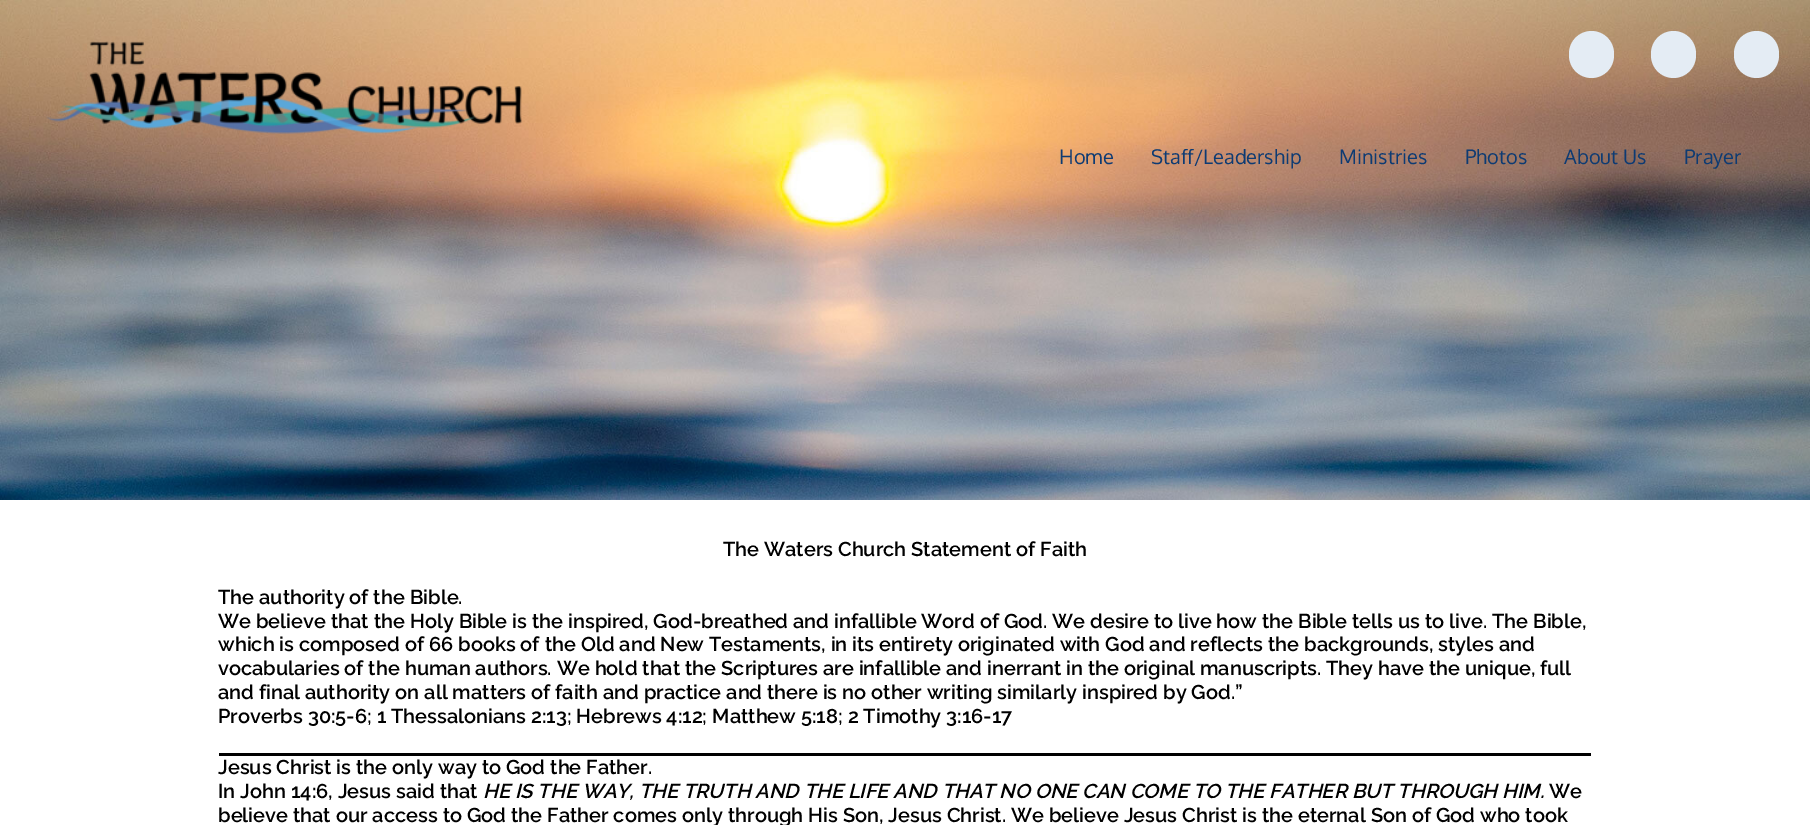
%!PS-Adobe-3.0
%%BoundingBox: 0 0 1810 825
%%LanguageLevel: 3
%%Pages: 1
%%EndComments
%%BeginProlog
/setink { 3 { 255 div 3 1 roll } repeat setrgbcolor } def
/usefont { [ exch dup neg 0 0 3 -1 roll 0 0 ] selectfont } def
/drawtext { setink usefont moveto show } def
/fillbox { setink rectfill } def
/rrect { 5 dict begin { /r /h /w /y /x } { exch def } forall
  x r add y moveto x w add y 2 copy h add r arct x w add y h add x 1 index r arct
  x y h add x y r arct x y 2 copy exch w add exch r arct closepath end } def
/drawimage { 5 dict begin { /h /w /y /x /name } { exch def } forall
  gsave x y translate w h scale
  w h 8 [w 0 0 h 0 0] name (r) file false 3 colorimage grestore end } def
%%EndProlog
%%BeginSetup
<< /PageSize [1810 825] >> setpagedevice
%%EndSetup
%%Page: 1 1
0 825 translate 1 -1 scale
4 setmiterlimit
0 0 1810 825 255 255 255 fillbox
(assets/img1.rgb) 0 0 1810 500 drawimage
(assets/img2.rgb) 46 41 477 93 drawimage
228 236 244 setink
1569 31 45 47 22.5 rrect fill
1651 31 45 47 22.5 rrect fill
1734 31 45 47 22.5 rrect fill
(Home) 1059 164 /Oxygen-Regular 20 13 59 115 drawtext
(Staff/Leadership) 1151 164 /Oxygen-Regular 20 13 59 115 drawtext
(Ministries) 1339 164 /Oxygen-Regular 20 13 59 115 drawtext
(Photos) 1465 164 /Oxygen-Regular 20 13 59 115 drawtext
(About Us) 1564 164 /Oxygen-Regular 20 13 59 115 drawtext
(Prayer) 1684 164 /Oxygen-Regular 20 13 59 115 drawtext
(The Waters Church Statement of Faith) 723 556 /Raleway-SemiBold 20 0 0 0 drawtext
(The authority of the Bible.) 218 604 /Raleway-SemiBold 20 0 0 0 drawtext
(We believe that the Holy Bible is the inspired, God-breathed and infallible Word of God. We desire to live how the Bible tells us to live. The Bible,) 218 628 /Raleway-SemiBold 20 0 0 0 drawtext
(which is composed of 66 books of the Old and New Testaments, in its entirety originated with God and reflects the backgrounds, styles and) 218 651 /Raleway-SemiBold 20 0 0 0 drawtext
(vocabularies of the human authors. We hold that the Scriptures are infallible and inerrant in the original manuscripts. They have the unique, full) 218 675 /Raleway-SemiBold 20 0 0 0 drawtext
(and final authority on all matters of faith and practice and there is no other writing similarly inspired by God.”) 218 699 /Raleway-SemiBold 20 0 0 0 drawtext
(Proverbs 30:5-6; 1 Thessalonians 2:13; Hebrews 4:12; Matthew 5:18; 2 Timothy 3:16-17) 218 723 /Raleway-SemiBold 20 0 0 0 drawtext
219 753 1372 3 0 0 0 fillbox
(Jesus Christ is the only way to God the Father.) 218 774 /Raleway-SemiBold 20 0 0 0 drawtext
(In John 14:6, Jesus said that) 218 798 /Raleway-SemiBold 20 0 0 0 drawtext
(HE IS THE WAY, THE TRUTH AND THE LIFE AND THAT NO ONE CAN COME TO THE FATHER BUT THROUGH HIM.) 483 798 /Raleway-SemiBoldItalic 20 0 0 0 drawtext
(We) 1549 798 /Raleway-SemiBold 20 0 0 0 drawtext
(believe that our access to God the Father comes only through His Son, Jesus Christ. We believe Jesus Christ is the eternal Son of God who took) 218 822 /Raleway-SemiBold 20 0 0 0 drawtext
showpage
%%EOF
